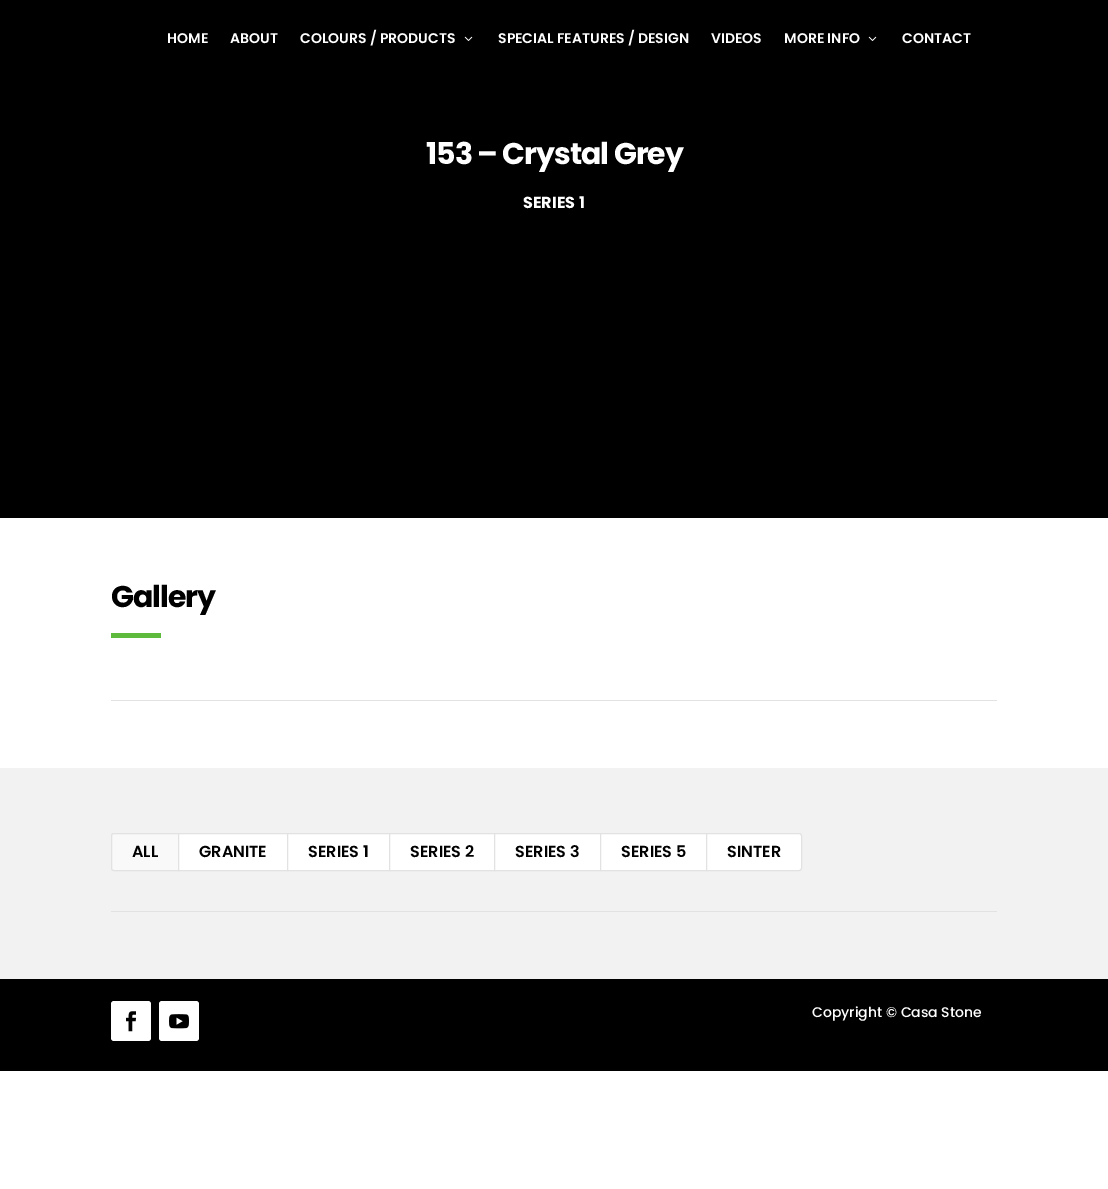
%!PS-Adobe-3.0
%%BoundingBox: 0 0 1108 1189
%%LanguageLevel: 3
%%Pages: 1
%%EndComments
%%BeginProlog
/setink { 3 { 255 div 3 1 roll } repeat setrgbcolor } def
/usefont { [ exch dup neg 0 0 3 -1 roll 0 0 ] selectfont } def
/drawtext { setink usefont moveto show } def
/fillbox { setink rectfill } def
/rrect { 5 dict begin { /r /h /w /y /x } { exch def } forall
  x r add y moveto x w add y 2 copy h add r arct x w add y h add x 1 index r arct
  x y h add x y r arct x y 2 copy exch w add exch r arct closepath end } def
/drawimage { 5 dict begin { /h /w /y /x /name } { exch def } forall
  gsave x y translate w h scale
  w h 8 [w 0 0 h 0 0] name (r) file false 3 colorimage grestore end } def
%%EndProlog
%%BeginSetup
<< /PageSize [1108 1189] >> setpagedevice
%%EndSetup
%%Page: 1 1
0 1189 translate 1 -1 scale
4 setmiterlimit
0 0 1108 1189 255 255 255 fillbox
0 0 1108 518 0 0 0 fillbox
(HOME) 167 43 /Poppins-SemiBold 14 255 255 255 drawtext
(ABOUT) 230 43 /Poppins-SemiBold 14 255 255 255 drawtext
(COLOURS / PRODUCTS) 300 43 /Poppins-SemiBold 14 255 255 255 drawtext
(assets/img1.rgb) 464 36 9 5 drawimage
(SPECIAL FEATURES / DESIGN) 498 43 /Poppins-SemiBold 14 255 255 255 drawtext
(VIDEOS) 711 43 /Poppins-SemiBold 14 255 255 255 drawtext
(MORE INFO) 784 43 /Poppins-SemiBold 14 255 255 255 drawtext
(assets/img1.rgb) 868 36 9 5 drawimage
(CONTACT) 902 43 /Poppins-SemiBold 14 255 255 255 drawtext
/Poppins-Bold 30 usefont
426 164 moveto -1 0 (153 – Crystal Grey) ashow
(SERIES 1) 523 208 /Poppins-Bold 16 255 255 255 drawtext
/Poppins-Bold 30 usefont
0 0 0 setink
111 607 moveto -1 0 (Gallery) ashow
111 633 50 5 94 186 61 fillbox
111 700 886 1 226 226 226 fillbox
0 768 1108 211 242 242 242 fillbox
249 249 249 setink
114 833.5 moveto 178.5 833.5 lineto 178.5 870.5 lineto 114 870.5 lineto 112.5 870.5 111.5 869.5 111.5 868 curveto 111.5 836 lineto 111.5 834.5 112.5 833.5 114 833.5 curveto closepath gsave fill grestore
226 226 226 setink
stroke
(ALL) 132 857 /Poppins-SemiBold 16 0 0 0 drawtext
255 255 255 setink
178.5 833.5 moveto 287.5 833.5 lineto 287.5 870.5 lineto 178.5 870.5 lineto closepath gsave fill grestore
226 226 226 setink
stroke
(GRANITE) 199 857 /Poppins-SemiBold 16 0 0 0 drawtext
255 255 255 setink
287.5 833.5 moveto 389.5 833.5 lineto 389.5 870.5 lineto 287.5 870.5 lineto closepath gsave fill grestore
226 226 226 setink
stroke
(SERIES 1) 308 857 /Poppins-SemiBold 16 0 0 0 drawtext
255 255 255 setink
389.5 833.5 moveto 494.5 833.5 lineto 494.5 870.5 lineto 389.5 870.5 lineto closepath gsave fill grestore
226 226 226 setink
stroke
(SERIES 2) 410 857 /Poppins-SemiBold 16 0 0 0 drawtext
255 255 255 setink
494.5 833.5 moveto 600.5 833.5 lineto 600.5 870.5 lineto 494.5 870.5 lineto closepath gsave fill grestore
226 226 226 setink
stroke
(SERIES 3) 515 857 /Poppins-SemiBold 16 0 0 0 drawtext
255 255 255 setink
600.5 833.5 moveto 706.5 833.5 lineto 706.5 870.5 lineto 600.5 870.5 lineto closepath gsave fill grestore
226 226 226 setink
stroke
(SERIES 5) 621 857 /Poppins-SemiBold 16 0 0 0 drawtext
255 255 255 setink
706.5 833.5 moveto 799 833.5 lineto 800.5 833.5 801.5 834.5 801.5 836 curveto 801.5 868 lineto 801.5 869.5 800.5 870.5 799 870.5 curveto 706.5 870.5 lineto closepath gsave fill grestore
226 226 226 setink
stroke
(SINTER) 727 857 /Poppins-SemiBold 16 0 0 0 drawtext
111 911 886 1 226 226 226 fillbox
0 979 1108 92 0 0 0 fillbox
255 255 255 setink
111 1001 40 40 3 rrect fill
(assets/img2.rgb) 126 1011 10 21 drawimage
159 1001 40 40 3 rrect fill
(assets/img3.rgb) 169 1014 20 15 drawimage
(Copyright © Casa Stone) 812 1017 /Poppins-Medium 14 255 255 255 drawtext
showpage
%%EOF
